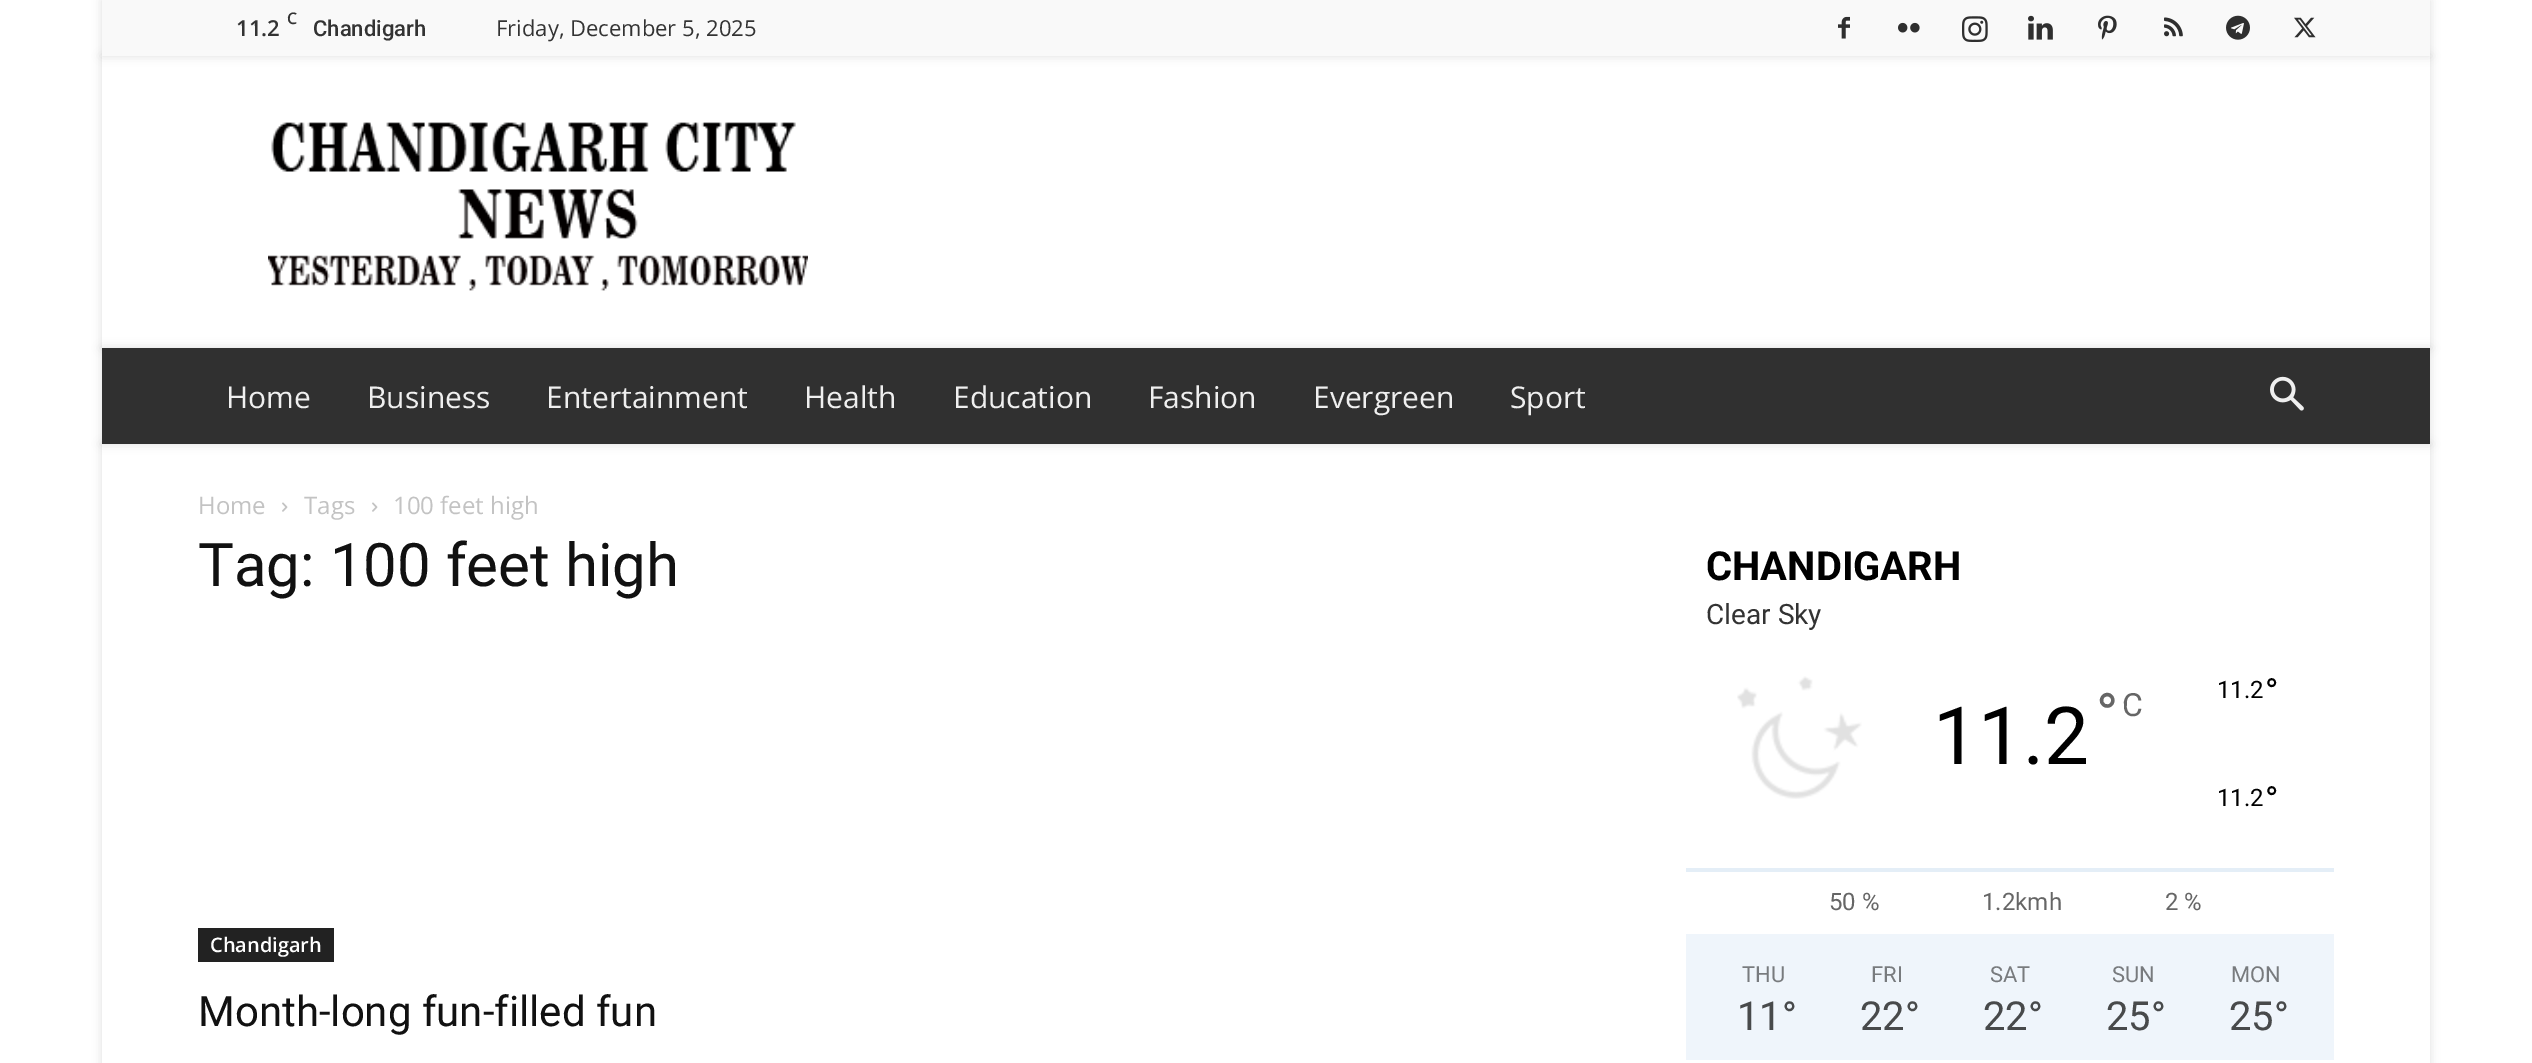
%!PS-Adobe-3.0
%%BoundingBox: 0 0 2532 1063
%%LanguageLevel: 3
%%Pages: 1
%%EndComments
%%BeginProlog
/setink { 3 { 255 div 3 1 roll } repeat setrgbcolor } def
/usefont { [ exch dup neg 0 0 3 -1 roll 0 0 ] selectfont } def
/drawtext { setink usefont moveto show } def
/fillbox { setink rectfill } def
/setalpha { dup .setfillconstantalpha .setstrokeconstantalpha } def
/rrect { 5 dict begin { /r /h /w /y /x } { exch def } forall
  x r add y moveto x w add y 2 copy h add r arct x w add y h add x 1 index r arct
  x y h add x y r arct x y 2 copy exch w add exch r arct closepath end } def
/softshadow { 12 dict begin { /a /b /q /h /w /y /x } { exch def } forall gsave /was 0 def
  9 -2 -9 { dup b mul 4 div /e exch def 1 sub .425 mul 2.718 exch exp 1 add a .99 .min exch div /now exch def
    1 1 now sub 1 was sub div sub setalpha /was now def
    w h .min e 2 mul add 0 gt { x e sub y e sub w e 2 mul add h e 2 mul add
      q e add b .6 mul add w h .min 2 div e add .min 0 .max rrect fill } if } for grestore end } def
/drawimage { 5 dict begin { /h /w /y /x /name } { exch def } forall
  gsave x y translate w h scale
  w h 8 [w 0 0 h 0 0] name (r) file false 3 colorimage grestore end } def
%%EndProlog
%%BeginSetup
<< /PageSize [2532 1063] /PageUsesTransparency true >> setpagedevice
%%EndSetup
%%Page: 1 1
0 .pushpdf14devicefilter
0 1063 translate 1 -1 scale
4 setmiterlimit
0 0 2532 1063 255 255 255 fillbox
0 0 0 setink
102 0 2328 56 0 5 0.12 softshadow
gsave
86 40 moveto 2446 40 lineto 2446 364 lineto 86 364 lineto closepath 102 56 moveto 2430 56 lineto 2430 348 lineto 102 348 lineto closepath eoclip newpath
102 56 2328 292 0 5 0.12 softshadow
grestore
102 0 2328 56 249 249 249 fillbox
(C) 287 24 /OpenSans-SemiBold 16 51 51 51 drawtext
(11.2) 236 36 /OpenSans-SemiBold 22 51 51 51 drawtext
(Chandigarh) 313 36 /Roboto-Medium 22 51 51 51 drawtext
(Friday, December 5, 2025) 496 36 /OpenSans-Regular 22 51 51 51 drawtext
(assets/img1.rgb) 1838 16 12 23 drawimage
(assets/img2.rgb) 1898 22 22 11 drawimage
(assets/img3.rgb) 1962 16 26 26 drawimage
(assets/img4.rgb) 2028 15 25 25 drawimage
(assets/img5.rgb) 2098 15 19 25 drawimage
(assets/img6.rgb) 2164 17 19 20 drawimage
(assets/img7.rgb) 2226 15 24 25 drawimage
(assets/img8.rgb) 2294 17 22 21 drawimage
(assets/img9.rgb) 268 122 540 169 drawimage
0 0 0 setink
102 348 2328 96 0 5 0.12 softshadow
gsave
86 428 moveto 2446 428 lineto 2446 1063 lineto 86 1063 lineto closepath 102 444 moveto 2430 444 lineto 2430 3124 lineto 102 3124 lineto closepath eoclip newpath
102 444 2328 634 0 5 0.12 softshadow
grestore
102 348 2328 96 48 48 48 fillbox
(Home) 226 408 /OpenSans-Regular 30 239 239 239 drawtext
(Business) 367 408 /OpenSans-Regular 30 239 239 239 drawtext
(Entertainment) 546 408 /OpenSans-Regular 30 239 239 239 drawtext
(Health) 804 408 /OpenSans-Regular 30 239 239 239 drawtext
(Education) 953 408 /OpenSans-Regular 30 239 239 239 drawtext
(Fashion) 1148 408 /OpenSans-Regular 30 239 239 239 drawtext
(Evergreen) 1313 408 /OpenSans-Regular 30 239 239 239 drawtext
(Sport) 1510 408 /OpenSans-Regular 30 239 239 239 drawtext
(assets/img10.rgb) 2270 376 34 35 drawimage
(Home) 198 514 /OpenSans-Regular 24 195 195 195 drawtext
(assets/img11.rgb) 282 502 6 10 drawimage
(Tags) 304 514 /OpenSans-Regular 24 195 195 195 drawtext
(assets/img11.rgb) 372 502 6 10 drawimage
(100 feet high) 393 514 /OpenSans-Regular 24 195 195 195 drawtext
(Tag: 100 feet high) 198 586 /Roboto-Regular 60 17 17 17 drawtext
198 928 136 34 34 34 34 fillbox
(Chandigarh) 210 952 /OpenSans-SemiBold 20 255 255 255 drawtext
(Month-long fun-filled fun) 198 1026 /Roboto-Regular 42 17 17 17 drawtext
(CHANDIGARH) 1706 580 /Roboto-Bold 40 0 0 0 drawtext
(Clear Sky) 1706 624 /Roboto-Regular 28 51 51 51 drawtext
(assets/img12.rgb) 1737 676 125 123 drawimage
(11.2) 1933 764 /Roboto-Regular 80 0 0 0 drawtext
(°) 2096 736 /Roboto-Regular 60 102 102 102 drawtext
(C) 2122 716 /Roboto-Regular 32 102 102 102 drawtext
(11.2) 2217 698 /Roboto-Regular 24 0 0 0 drawtext
(°) 2265 704 /Roboto-Regular 36 0 0 0 drawtext
(11.2) 2217 806 /Roboto-Regular 24 0 0 0 drawtext
(°) 2265 812 /Roboto-Regular 36 0 0 0 drawtext
1686 868 648 4 228 238 247 fillbox
(50 %) 1829 910 /Roboto-Regular 24 102 102 102 drawtext
(1.2kmh) 1982 910 /Roboto-Regular 24 102 102 102 drawtext
(2 %) 2165 910 /Roboto-Regular 24 102 102 102 drawtext
1686 934 648 126 239 245 251 fillbox
(THU) 1742 982 /Roboto-Regular 22 120 123 126 drawtext
(11°) 1737 1030 /Roboto-Regular 40 72 74 75 drawtext
(FRI) 1871 982 /Roboto-Regular 22 120 123 126 drawtext
(22°) 1860 1030 /Roboto-Regular 40 72 74 75 drawtext
(SAT) 1990 982 /Roboto-Regular 22 120 123 126 drawtext
(22°) 1983 1030 /Roboto-Regular 40 72 74 75 drawtext
(SUN) 2112 982 /Roboto-Regular 22 120 123 126 drawtext
(25°) 2106 1030 /Roboto-Regular 40 72 74 75 drawtext
(MON) 2231 982 /Roboto-Regular 22 120 123 126 drawtext
(25°) 2229 1030 /Roboto-Regular 40 72 74 75 drawtext
.poppdf14devicefilter showpage
%%EOF
